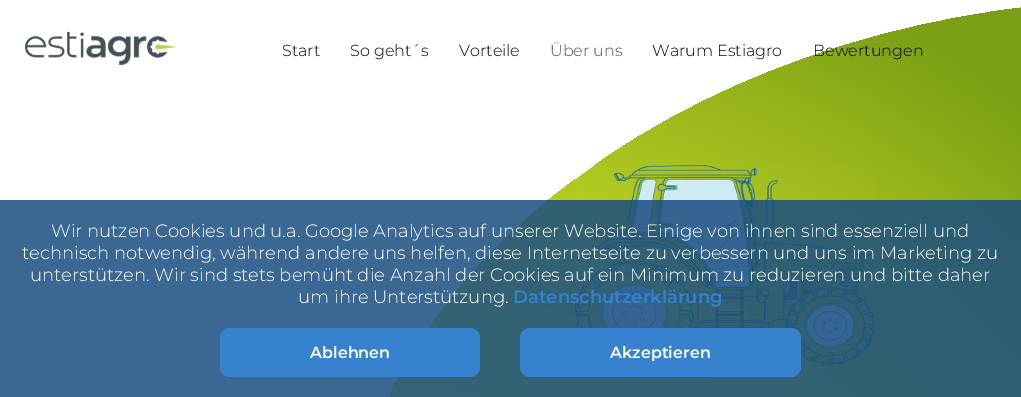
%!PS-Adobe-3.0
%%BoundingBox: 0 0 1021 397
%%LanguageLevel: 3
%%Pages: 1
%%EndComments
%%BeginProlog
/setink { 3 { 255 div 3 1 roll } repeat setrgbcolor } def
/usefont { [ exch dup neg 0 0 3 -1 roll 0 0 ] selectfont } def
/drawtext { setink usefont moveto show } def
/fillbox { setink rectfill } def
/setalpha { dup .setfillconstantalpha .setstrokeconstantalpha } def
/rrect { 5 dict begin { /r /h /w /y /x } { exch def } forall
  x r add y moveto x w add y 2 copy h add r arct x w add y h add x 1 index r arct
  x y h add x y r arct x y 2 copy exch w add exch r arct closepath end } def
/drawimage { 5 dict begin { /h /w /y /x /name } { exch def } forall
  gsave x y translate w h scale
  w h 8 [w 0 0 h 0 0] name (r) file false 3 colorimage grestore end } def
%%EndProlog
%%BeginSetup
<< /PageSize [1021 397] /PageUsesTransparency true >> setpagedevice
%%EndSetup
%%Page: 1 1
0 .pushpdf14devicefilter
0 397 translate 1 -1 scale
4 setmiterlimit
0 0 1021 397 255 255 255 fillbox
gsave 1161 -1 moveto 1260 -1 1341 106 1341 239 curveto 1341 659 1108 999 821 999 curveto 556 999 341 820 341 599 curveto 341 268 708 -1 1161 -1 curveto closepath clip newpath 341 999 translate 1414 1414 scale
<< /ShadingType 3 /ColorSpace /DeviceRGB /Coords [0 0 0 0 0 1] /Extend [true true] /Function << /FunctionType 3 /Domain [0 1] /Functions [<< /FunctionType 2 /Domain [0 1] /C0 [0.945 1 0.455] /C1 [0.945 1 0.455] /N 1 >> << /FunctionType 2 /Domain [0 1] /C0 [0.945 1 0.455] /C1 [0.749 0.827 0.141] /N 1 >> << /FunctionType 2 /Domain [0 1] /C0 [0.749 0.827 0.141] /C1 [0.478 0.624 0.082] /N 1 >> << /FunctionType 2 /Domain [0 1] /C0 [0.478 0.624 0.082] /C1 [0.478 0.624 0.082] /N 1 >>] /Bounds [0.1 0.55 0.8] /Encode [0 1 0 1 0 1 0 1] >> >> shfill grestore
(assets/img1.rgb) 575 165 300 200 drawimage
(assets/img2.rgb) 25 31 150 34 drawimage
(Start) 282 56 /Montserrat-Light 16 0 0 0 drawtext
(So geht´s) 350 56 /Montserrat-Light 16 0 0 0 drawtext
(Vorteile) 459 56 /Montserrat-Light 16 0 0 0 drawtext
(Über uns) 550 56 /Montserrat-Light 16 68 79 87 drawtext
(Warum Estiagro) 652 56 /Montserrat-Light 16 0 0 0 drawtext
(Bewertungen) 813 56 /Montserrat-Light 16 0 0 0 drawtext
0.85 setalpha
0 200 1021 197 25 77 128 fillbox
1 setalpha
(Wir nutzen Cookies und u.a. Google Analytics auf unserer Website. Einige von ihnen sind essenziell und) 51 237 /Montserrat-Light 18 255 255 255 drawtext
(technisch notwendig, während andere uns helfen, diese Internetseite zu verbessern und uns im Marketing zu) 22 259 /Montserrat-Light 18 255 255 255 drawtext
(unterstützen. Wir sind stets bemüht die Anzahl der Cookies auf ein Minimum zu reduzieren und bitte daher) 30 281 /Montserrat-Light 18 255 255 255 drawtext
(um ihre Unterstützung.) 298 303 /Montserrat-Light 18 255 255 255 drawtext
(Datenschutzerklärung) 513 303 /Montserrat-SemiBold 18 54 130 206 drawtext
220 328 260 49 10 rrect fill
(Ablehnen) 310 358 /Montserrat-SemiBold 16 255 255 255 drawtext
54 130 206 setink
520 328 281 49 10 rrect fill
(Akzeptieren) 610 358 /Montserrat-SemiBold 16 255 255 255 drawtext
.poppdf14devicefilter showpage
%%EOF
